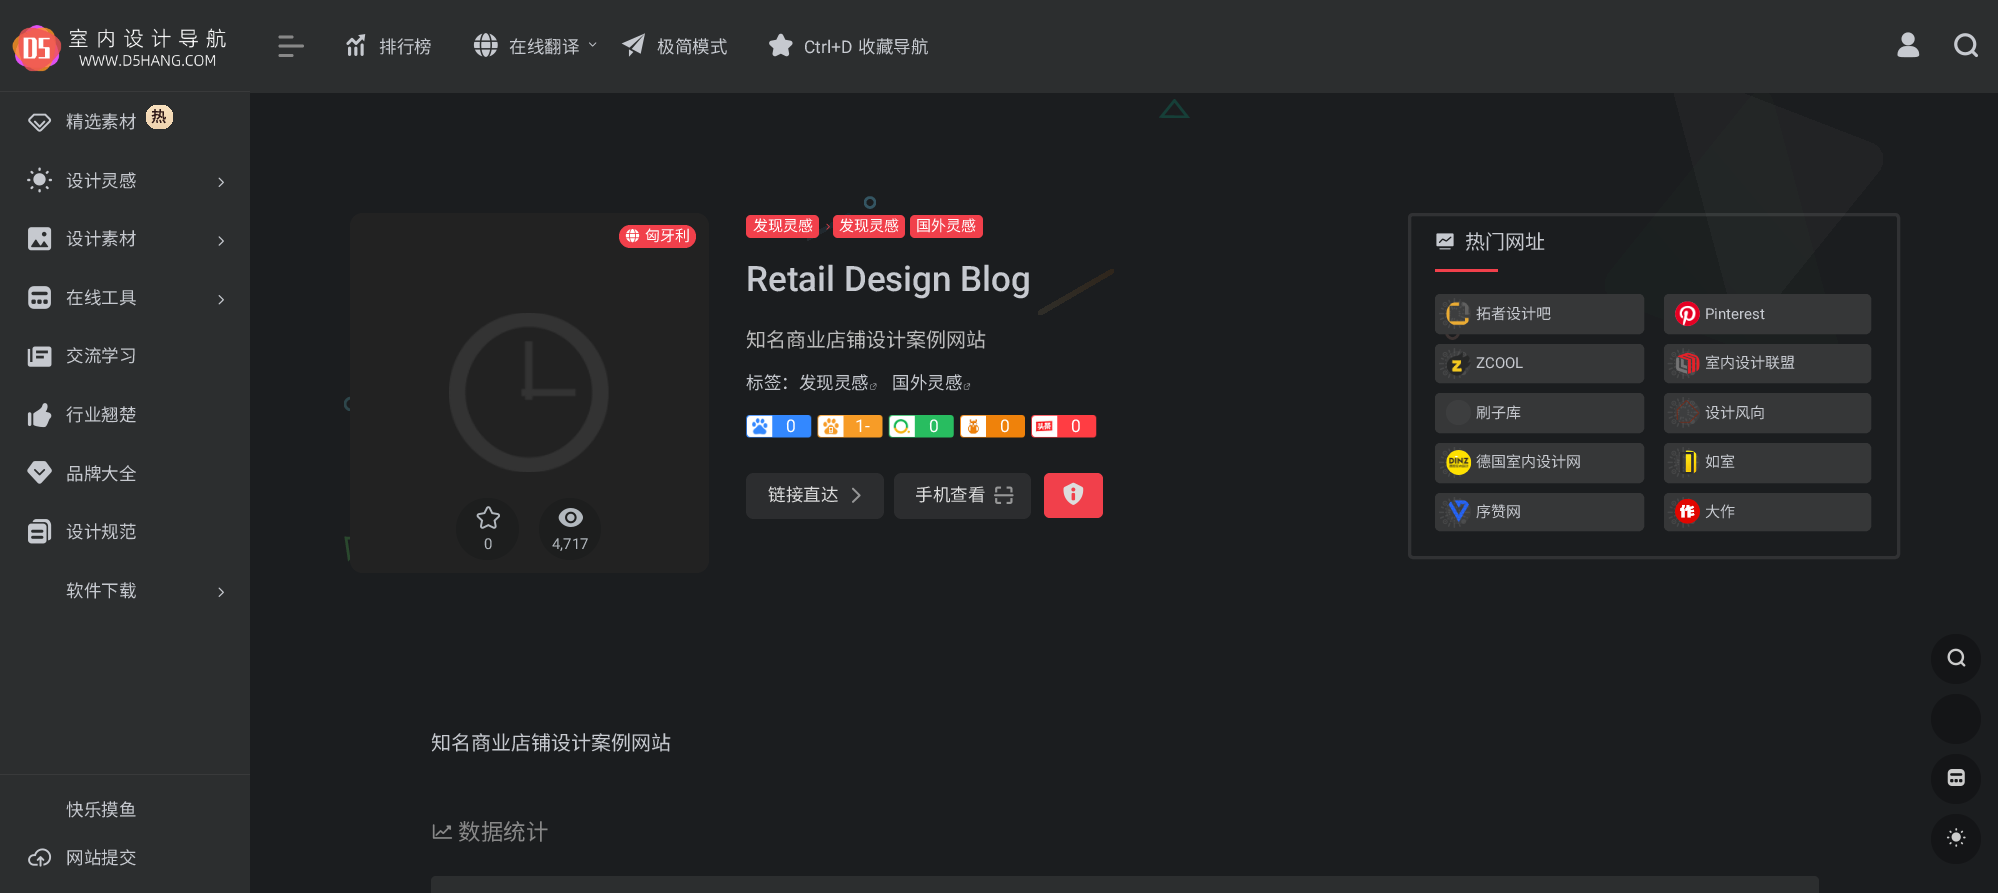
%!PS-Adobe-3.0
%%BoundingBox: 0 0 1998 893
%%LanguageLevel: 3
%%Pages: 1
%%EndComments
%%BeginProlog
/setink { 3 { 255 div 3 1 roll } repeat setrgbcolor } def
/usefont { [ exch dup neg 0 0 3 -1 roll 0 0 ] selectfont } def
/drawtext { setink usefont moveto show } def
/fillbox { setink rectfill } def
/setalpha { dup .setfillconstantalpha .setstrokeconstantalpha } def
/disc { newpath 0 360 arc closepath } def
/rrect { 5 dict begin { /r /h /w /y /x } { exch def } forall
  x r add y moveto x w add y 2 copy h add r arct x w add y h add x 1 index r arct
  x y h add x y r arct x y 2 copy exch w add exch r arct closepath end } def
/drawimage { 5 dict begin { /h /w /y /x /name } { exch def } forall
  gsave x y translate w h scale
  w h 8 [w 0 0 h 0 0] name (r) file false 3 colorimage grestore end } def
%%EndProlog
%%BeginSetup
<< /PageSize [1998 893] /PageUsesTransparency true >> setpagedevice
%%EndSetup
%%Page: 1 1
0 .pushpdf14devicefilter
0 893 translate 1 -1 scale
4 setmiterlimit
0 0 1998 893 27 29 31 fillbox
0 0 250 893 44 46 47 fillbox
0 91 250 1 57 58 59 fillbox
(assets/img1.rgb) 12 25 214 47 drawimage
(assets/img2.rgb) 28 113 24 19 drawimage
(精选素材) 66 128 /NotoSansCJKSC-Regular 17.5 198 201 207 drawtext
gsave 146 105 27 24 12 rrect clip newpath
<< /ShadingType 2 /ColorSpace /DeviceRGB /Coords [159 129 159 105] /Extend [true true] /Function << /FunctionType 2 /Domain [0 1] /C0 [0.937 0.827 0.69] /C1 [0.976 0.882 0.745] /N 1 >> >> shfill grestore
/NotoSansCJKSC-Bold 15 usefont
43 20 20 setink
151 122 moveto 1 0 (热) ashow
(assets/img3.rgb) 27 167 25 26 drawimage
(设计灵感) 66 187 /NotoSansCJKSC-Regular 17.5 198 201 207 drawtext
(assets/img4.rgb) 218 177 6 10 drawimage
(assets/img5.rgb) 28 227 24 24 drawimage
(设计素材) 66 245 /NotoSansCJKSC-Regular 17.5 198 201 207 drawtext
(assets/img6.rgb) 218 236 6 10 drawimage
(assets/img7.rgb) 28 286 23 23 drawimage
(在线工具) 66 304 /NotoSansCJKSC-Regular 17.5 198 201 207 drawtext
(assets/img8.rgb) 218 295 6 10 drawimage
(assets/img9.rgb) 27 346 25 21 drawimage
(交流学习) 66 362 /NotoSansCJKSC-Regular 17.5 198 201 207 drawtext
(assets/img10.rgb) 27 403 25 25 drawimage
(行业翘楚) 66 421 /NotoSansCJKSC-Regular 17.5 198 201 207 drawtext
(assets/img11.rgb) 27 461 25 23 drawimage
(品牌大全) 66 480 /NotoSansCJKSC-Regular 17.5 198 201 207 drawtext
(assets/img12.rgb) 28 519 24 25 drawimage
(设计规范) 66 538 /NotoSansCJKSC-Regular 17.5 198 201 207 drawtext
(软件下载) 66 597 /NotoSansCJKSC-Regular 17.5 198 201 207 drawtext
(assets/img13.rgb) 218 587 6 10 drawimage
0 774 250 1 57 58 59 fillbox
(快乐摸鱼) 66 816 /NotoSansCJKSC-Regular 17.5 198 201 207 drawtext
(assets/img14.rgb) 28 848 24 19 drawimage
(网站提交) 66 864 /NotoSansCJKSC-Regular 17.5 198 201 207 drawtext
gsave 1734 318 moveto 1673 89 lineto 1669 75 1677 69 1690 73 curveto 1871 143 lineto 1884 148 1887 161 1878 172 curveto 1756 323 lineto 1748 333 1738 331 1734 318 curveto closepath eoclip newpath
<< /ShadingType 2 /ColorSpace /DeviceRGB /Coords [1829 72 1645 208] /Extend [true true] /Function << /FunctionType 2 /Domain [0 1] /C0 [0.133 0.137 0.145] /C1 [0.133 0.141 0.145] /N 1 >> >> shfill grestore
0.11 setalpha
gsave 1773 102 moveto 1844 367 lineto 1848 380 1840 387 1827 382 curveto 1617 301 lineto 1604 296 1601 283 1610 272 curveto 1751 97 lineto 1760 87 1769 89 1773 102 curveto closepath eoclip newpath
<< /ShadingType 2 /ColorSpace /DeviceRGB /Coords [1772 90 1571 260] /Extend [true true] /Function << /FunctionType 2 /Domain [0 1] /C0 [0.176 0.239 0.165] /C1 [0.102 0.22 0.169] /N 1 >> >> shfill grestore
1 setalpha
250 0 1748 93 44 46 47 fillbox
136 136 136 setink
2.8 setlinewidth
1 setlinecap
1 setlinejoin
280 37 moveto 292 37 lineto 280 46 moveto 302.5 46 lineto 280 55.5 moveto 292 55.5 lineto stroke
(assets/img15.rgb) 346 34 20 22 drawimage
(排行榜) 379 53 /NotoSansCJKSC-Regular 17.5 198 201 207 drawtext
(assets/img16.rgb) 473 33 25 24 drawimage
(在线翻译) 509 53 /NotoSansCJKSC-Regular 17.5 198 201 207 drawtext
(assets/img17.rgb) 589 42 8 5 drawimage
(assets/img18.rgb) 621 33 24 24 drawimage
(极简模式) 657 53 /NotoSansCJKSC-Regular 17.5 198 201 207 drawtext
(assets/img19.rgb) 769 33 24 24 drawimage
(Ctrl+D) 804 53 /Roboto-Regular 17.5 198 201 207 drawtext
(收藏导航) 858 53 /NotoSansCJKSC-Regular 17.5 198 201 207 drawtext
(assets/img20.rgb) 1897 32 23 26 drawimage
(assets/img21.rgb) 1954 33 24 25 drawimage
gsave
1159 99 32 19 rectclip
22 63 56 setink
2.5 setlinewidth
0 setlinecap
0 setlinejoin
1187.5 117 moveto 1174.5 100.5 lineto 1161.5 116.5 lineto closepath stroke
grestore
gsave
864 196 12 13 rectclip
52 85 98 setink
2.5 setlinewidth
0 setlinecap
0 setlinejoin
870 202.5 5 disc stroke
grestore
gsave 808 237 moveto 849 213 lineto 850 214 lineto 853 217 847 219 843 221 curveto 809 240 lineto 807 241 806 238 808 237 curveto closepath eoclip newpath
<< /ShadingType 2 /ColorSpace /DeviceRGB /Coords [807 239 850 214] /Extend [true true] /Function << /FunctionType 2 /Domain [0 1] /C0 [0.153 0.173 0.184] /C1 [0.098 0.149 0.184] /N 1 >> >> shfill grestore
gsave 1039 311 moveto 1112 269 lineto 1113 269 1114 270 1114 271 curveto 1113 273 lineto 1041 315 lineto 1038 315 1037 312 1039 311 curveto closepath eoclip newpath
<< /ShadingType 2 /ColorSpace /DeviceRGB /Coords [1038 314 1114 270] /Extend [true true] /Function << /FunctionType 2 /Domain [0 1] /C0 [0.184 0.18 0.161] /C1 [0.184 0.149 0.11] /N 1 >> >> shfill grestore
60 51 50 setink
2.5 setlinewidth
0 setlinecap
0 setlinejoin
1452.5 332.5 6 disc stroke
gsave
344 396 15 15 rectclip
45 70 75 setink
351 404 6 disc stroke
grestore
42 72 46 setink
366.5 539 moveto 346 538 lineto 349 558.5 lineto closepath stroke
34 34 34 setink
350 213 359 360 13 rrect fill
241 64 75 setink
619 225 77 23 11.5 rrect fill
(assets/img22.rgb) 625 228 15 15 drawimage
(匈牙利) 645 241 /NotoSansCJKSC-Regular 15 255 255 255 drawtext
(assets/img23.rgb) 449 313 160 159 drawimage
29 30 30 setink
456 498 63 62 31 rrect fill
(assets/img24.rgb) 476 506 24 23 drawimage
(0) 484 549 /Roboto-Regular 15 178 184 190 drawtext
29 30 30 setink
570 529 31 disc fill
(assets/img25.rgb) 558 508 25 19 drawimage
(4,717) 552 549 /Roboto-Regular 15 178 184 190 drawtext
241 64 75 setink
746 215 73 23 5 rrect fill
(发现灵感) 753 231 /NotoSansCJKSC-Regular 15 255 255 255 drawtext
(assets/img26.rgb) 826 223 4 7 drawimage
241 64 75 setink
833 215 72 23 5 rrect fill
(发现灵感) 839 231 /NotoSansCJKSC-Regular 15 255 255 255 drawtext
241 64 75 setink
910 215 73 23 5 rrect fill
(国外灵感) 916 231 /NotoSansCJKSC-Regular 15 255 255 255 drawtext
(Retail Design Blog) 746 291 /Roboto-Medium 35 198 201 207 drawtext
(知名商业店铺设计案例网站) 746 347 /NotoSansCJKSC-Regular 20 187 187 187 drawtext
(标签：发现灵感) 746 389 /NotoSansCJKSC-Regular 17.5 198 201 207 drawtext
(assets/img27.rgb) 870 383 7 7 drawimage
(国外灵感) 892 389 /NotoSansCJKSC-Regular 17.5 198 201 207 drawtext
(assets/img28.rgb) 963 383 8 7 drawimage
(assets/img29.rgb) 746 415 66 23 drawimage
(0) 786 432 /Roboto-Regular 17.5 255 255 255 drawtext
(assets/img30.rgb) 817 415 66 23 drawimage
(1-) 855 432 /Roboto-Regular 17.5 255 255 255 drawtext
(assets/img31.rgb) 888 415 66 23 drawimage
(0) 929 432 /Roboto-Regular 17.5 255 255 255 drawtext
(assets/img32.rgb) 960 415 65 23 drawimage
(0) 1000 432 /Roboto-Regular 17.5 255 255 255 drawtext
(assets/img33.rgb) 1031 415 66 23 drawimage
(0) 1071 432 /Roboto-Regular 17.5 255 255 255 drawtext
44 45 47 setink
746 473 138 46 8 rrect fill
(链接直达) 768 501 /NotoSansCJKSC-Regular 17.5 221 221 221 drawtext
(assets/img34.rgb) 852 487 9 16 drawimage
44 45 47 setink
894 473 137 46 8 rrect fill
(手机查看) 915 501 /NotoSansCJKSC-Regular 17.5 221 221 221 drawtext
(assets/img35.rgb) 994 486 20 18 drawimage
241 64 75 setink
1044 473 59 45 6 rrect fill
(assets/img36.rgb) 1063 482 21 23 drawimage
0.2 setalpha
136 136 136 setink
3 setlinewidth
1409.5 214.5 489 343 3.5 rrect stroke
1 setalpha
(assets/img37.rgb) 1436 233 18 17 drawimage
(热门网址) 1465 249 /NotoSansCJKSC-Regular 20 198 201 207 drawtext
1435 269 63 3 241 64 75 fillbox
54 55 56 setink
1435.5 294.5 208 39 4.5 rrect gsave fill grestore
1 setlinewidth
stroke
(assets/img38.rgb) 1439 298 31 31 drawimage
0.1 setalpha
128 128 128 setink
1458.5 313.5 12.5 disc fill
1 setalpha
(assets/img39.rgb) 1446 302 23 23 drawimage
(拓者设计吧) 1476 319 /NotoSansCJKSC-Regular 15 198 201 207 drawtext
54 55 56 setink
1664.5 294.5 206 39 4.5 rrect gsave fill grestore
stroke
61 62 63 setink
1687.5 313.5 12.5 disc fill
(assets/img40.rgb) 1675 301 25 26 drawimage
(Pinterest) 1705 319 /Roboto-Regular 15 198 201 207 drawtext
54 55 56 setink
1435.5 344.5 208 38 4.5 rrect gsave fill grestore
stroke
(assets/img38.rgb) 1439 348 31 31 drawimage
0.1 setalpha
128 128 128 setink
1458.5 363.5 12.5 disc fill
1 setalpha
(assets/img41.rgb) 1446 352 25 24 drawimage
(ZCOOL) 1476 368 /Roboto-Regular 15 198 201 207 drawtext
54 55 56 setink
1664.5 344.5 206 38 4.5 rrect gsave fill grestore
stroke
(assets/img42.rgb) 1667 348 30 31 drawimage
0.1 setalpha
128 128 128 setink
1687.5 363.5 12.5 disc fill
1 setalpha
(assets/img43.rgb) 1676 353 24 21 drawimage
(室内设计联盟) 1705 368 /NotoSansCJKSC-Regular 15 198 201 207 drawtext
54 55 56 setink
1435.5 393.5 208 39 4.5 rrect gsave fill grestore
stroke
61 62 63 setink
1458.5 412.5 12.5 disc fill
(刷子库) 1476 418 /NotoSansCJKSC-Regular 15 198 201 207 drawtext
54 55 56 setink
1664.5 393.5 206 39 4.5 rrect gsave fill grestore
stroke
(assets/img44.rgb) 1667 397 32 31 drawimage
0.1 setalpha
128 128 128 setink
1687.5 412.5 12.5 disc fill
1 setalpha
(assets/img45.rgb) 1676 400 23 23 drawimage
(设计风向) 1705 418 /NotoSansCJKSC-Regular 15 198 201 207 drawtext
54 55 56 setink
1435.5 443.5 208 39 4.5 rrect gsave fill grestore
stroke
(assets/img46.rgb) 1439 447 27 31 drawimage
0.1 setalpha
128 128 128 setink
1458.5 462.5 12.5 disc fill
1 setalpha
(assets/img47.rgb) 1446 450 26 25 drawimage
(德国室内设计网) 1476 467 /NotoSansCJKSC-Regular 15 198 201 207 drawtext
54 55 56 setink
1664.5 443.5 206 39 4.5 rrect gsave fill grestore
stroke
(assets/img44.rgb) 1667 447 32 31 drawimage
0.1 setalpha
128 128 128 setink
1687.5 462.5 12.5 disc fill
1 setalpha
(assets/img48.rgb) 1680 450 17 25 drawimage
(如室) 1705 467 /NotoSansCJKSC-Regular 15 198 201 207 drawtext
54 55 56 setink
1435.5 493.5 208 37 4.5 rrect gsave fill grestore
stroke
(assets/img49.rgb) 1439 497 31 31 drawimage
0.1 setalpha
128 128 128 setink
1458.5 511.5 12.5 disc fill
1 setalpha
(assets/img50.rgb) 1448 500 21 23 drawimage
(序赞网) 1476 517 /NotoSansCJKSC-Regular 15 198 201 207 drawtext
54 55 56 setink
1664.5 493.5 206 37 4.5 rrect gsave fill grestore
stroke
(assets/img51.rgb) 1667 497 28 31 drawimage
0.1 setalpha
128 128 128 setink
1687.5 511.5 12.5 disc fill
1 setalpha
(assets/img52.rgb) 1675 498 25 26 drawimage
(大作) 1705 517 /NotoSansCJKSC-Regular 15 198 201 207 drawtext
(知名商业店铺设计案例网站) 431 750 /NotoSansCJKSC-Regular 20 198 201 207 drawtext
(assets/img53.rgb) 432 824 21 15 drawimage
(数据统计) 458 840 /NotoSansCJKSC-Regular 22.5 136 136 136 drawtext
44 46 47 setink
431 876 1388 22 5 rrect fill
20 21 23 setink
1956 659 25 disc fill
(assets/img54.rgb) 1947 648 19 19 drawimage
1956 719 25 disc fill
1956 779 25 disc fill
(assets/img55.rgb) 1947 769 18 17 drawimage
1956 839 25 disc fill
(assets/img56.rgb) 1946 828 20 19 drawimage
.poppdf14devicefilter showpage
%%EOF
